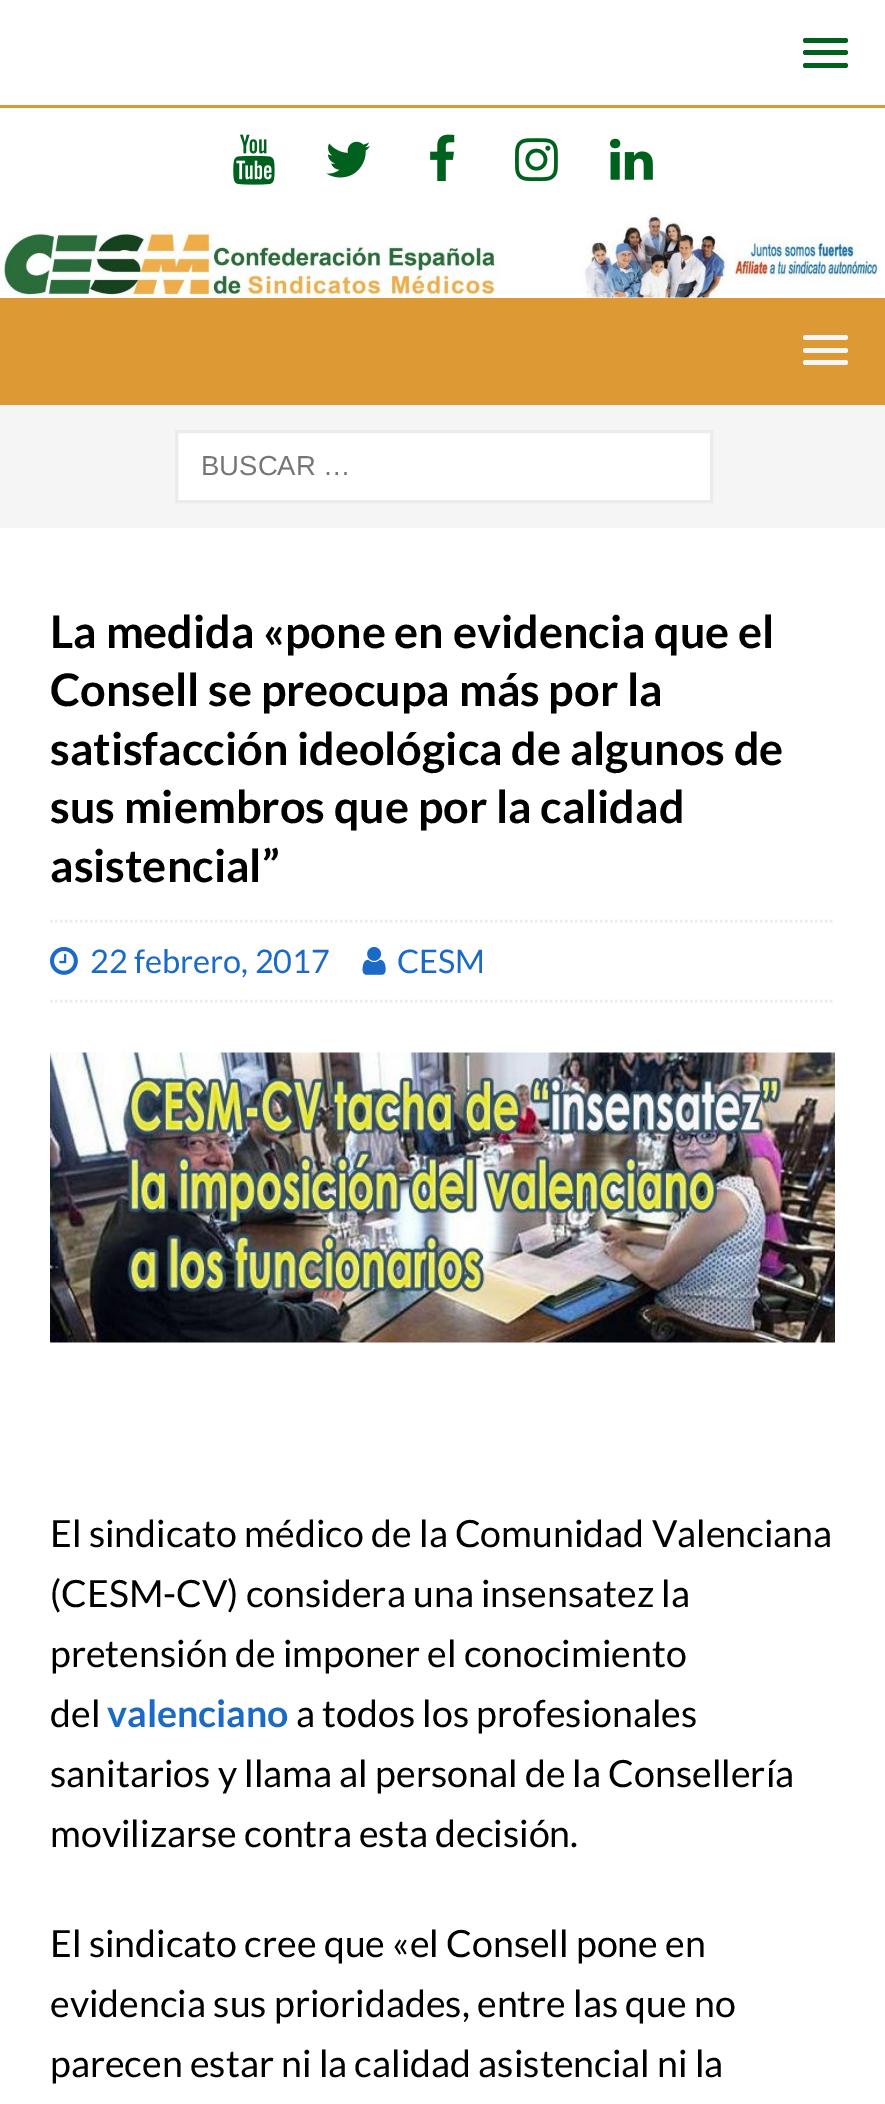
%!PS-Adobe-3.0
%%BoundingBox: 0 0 885 2104
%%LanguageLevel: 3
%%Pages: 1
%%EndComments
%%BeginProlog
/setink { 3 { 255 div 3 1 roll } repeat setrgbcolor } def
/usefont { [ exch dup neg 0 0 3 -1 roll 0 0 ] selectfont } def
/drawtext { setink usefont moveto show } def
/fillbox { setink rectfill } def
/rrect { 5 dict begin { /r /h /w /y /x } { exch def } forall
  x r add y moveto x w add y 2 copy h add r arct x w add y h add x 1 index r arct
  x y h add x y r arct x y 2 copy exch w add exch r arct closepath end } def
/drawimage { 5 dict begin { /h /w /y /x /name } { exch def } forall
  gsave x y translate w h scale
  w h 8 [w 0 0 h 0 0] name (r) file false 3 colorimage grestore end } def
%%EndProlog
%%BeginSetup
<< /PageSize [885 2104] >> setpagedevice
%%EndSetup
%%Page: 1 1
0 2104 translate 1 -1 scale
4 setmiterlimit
0 0 885 2104 255 255 255 fillbox
0 105 885 3 221 153 51 fillbox
0 96 30 setink
803 38 45 5 2.5 rrect fill
803 50 45 5 2.5 rrect fill
803 63 45 5 2.5 rrect fill
(assets/img1.rgb) 233 134 42 51 drawimage
(assets/img2.rgb) 326 141 44 37 drawimage
(assets/img3.rgb) 430 134 25 48 drawimage
(assets/img4.rgb) 515 138 43 44 drawimage
(assets/img5.rgb) 610 138 43 42 drawimage
(assets/img6.rgb) 0 214 879 84 drawimage
0 298 885 107 221 153 51 fillbox
245 245 245 setink
803 335 45 5 2.5 rrect fill
803 348 45 5 2.5 rrect fill
803 360 45 5 2.5 rrect fill
0 405 885 123 245 245 245 fillbox
255 255 255 setink
176.5 431.5 moveto 711.5 431.5 lineto 711.5 501.5 lineto 176.5 501.5 lineto closepath gsave fill grestore
235 235 235 setink
3 setlinewidth
stroke
(BUSCAR …) 201 475 /LiberationSans-Regular 27.5 117 117 117 drawtext
(La medida «pone en evidencia que el) 50 648 /Lato-Bold 45 0 0 0 drawtext
(Consell se preocupa más por la) 50 706 /Lato-Bold 45 0 0 0 drawtext
(satisfacción ideológica de algunos de) 50 765 /Lato-Bold 45 0 0 0 drawtext
(sus miembros que por la calidad) 50 823 /Lato-Bold 45 0 0 0 drawtext
(asistencial”) 50 882 /Lato-Bold 45 0 0 0 drawtext
235 235 235 setink
2.5 setlinewidth
[2.5 2.5] 0 setdash
50 921 moveto 835 921 lineto stroke
50 1001 moveto 835 1001 lineto stroke
(assets/img7.rgb) 50 947 28 28 drawimage
(22 febrero, 2017) 90 973 /Lato-Regular 32.5 27 107 198 drawtext
(assets/img8.rgb) 362 947 24 28 drawimage
(CESM) 397 973 /Lato-Regular 32.5 27 107 198 drawtext
(assets/img9.rgb) 50 1052 785 291 drawimage
(El sindicato médico de la Comunidad Valenciana) 50 1547 /Lato-Regular 37.5 0 0 0 drawtext
(\(CESM-CV\) considera una insensatez la) 50 1607 /Lato-Regular 37.5 0 0 0 drawtext
(pretensión de imponer el conocimiento) 50 1667 /Lato-Regular 37.5 0 0 0 drawtext
(del) 50 1727 /Lato-Regular 37.5 0 0 0 drawtext
(valenciano) 107 1727 /Lato-Bold 37.5 27 107 198 drawtext
(a todos los profesionales) 296 1727 /Lato-Regular 37.5 0 0 0 drawtext
(sanitarios y llama al personal de la Consellería) 50 1787 /Lato-Regular 37.5 0 0 0 drawtext
(movilizarse contra esta decisión.) 50 1847 /Lato-Regular 37.5 0 0 0 drawtext
(El sindicato cree que «el Consell pone en) 50 1957 /Lato-Regular 37.5 0 0 0 drawtext
(evidencia sus prioridades, entre las que no) 50 2017 /Lato-Regular 37.5 0 0 0 drawtext
(parecen estar ni la calidad asistencial ni la) 50 2077 /Lato-Regular 37.5 0 0 0 drawtext
showpage
%%EOF
